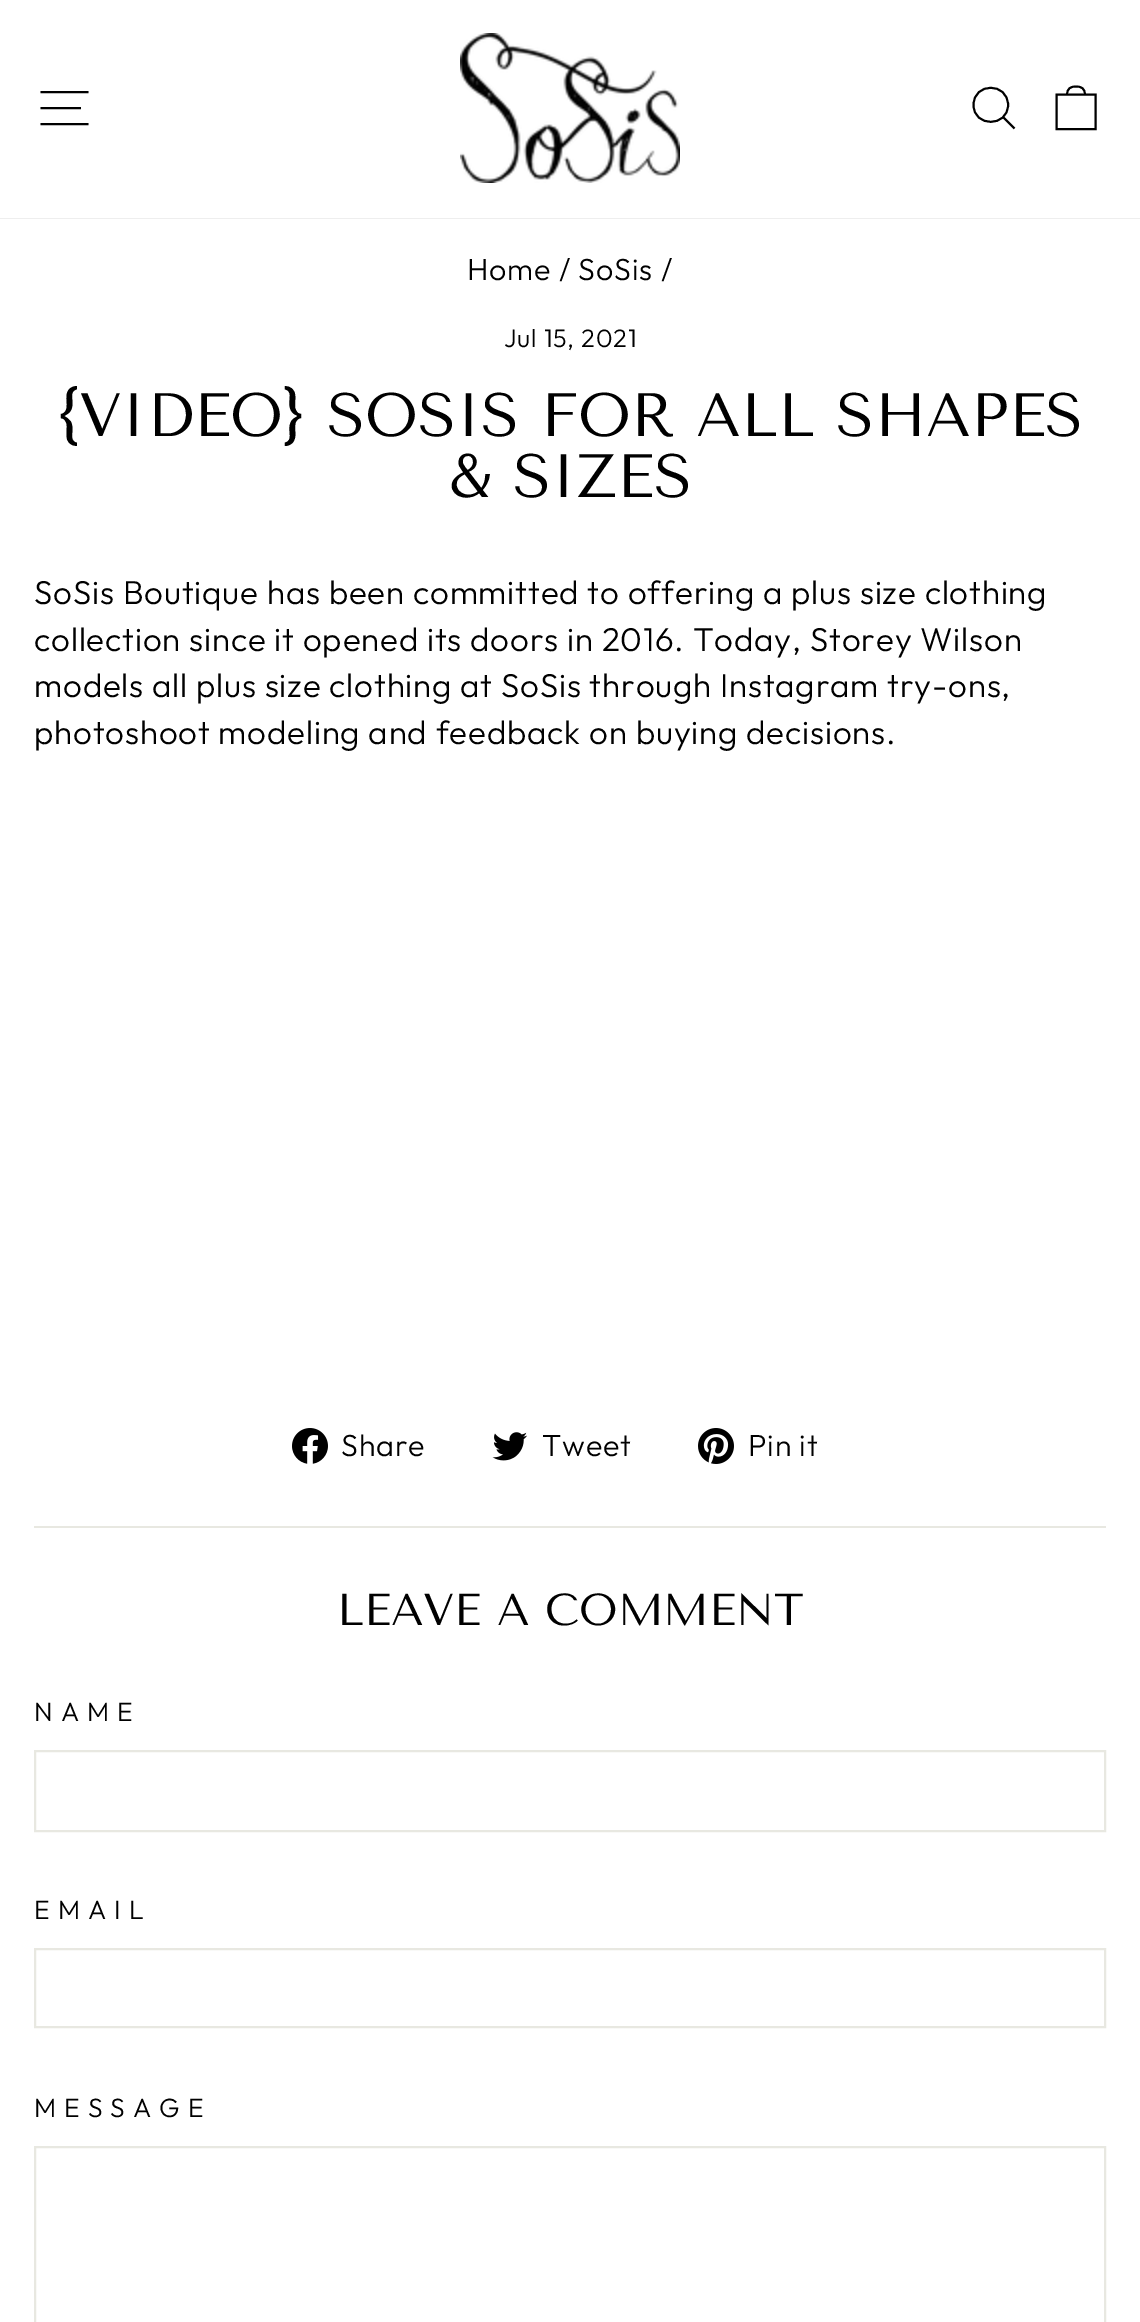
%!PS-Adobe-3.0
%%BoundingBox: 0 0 1140 2322
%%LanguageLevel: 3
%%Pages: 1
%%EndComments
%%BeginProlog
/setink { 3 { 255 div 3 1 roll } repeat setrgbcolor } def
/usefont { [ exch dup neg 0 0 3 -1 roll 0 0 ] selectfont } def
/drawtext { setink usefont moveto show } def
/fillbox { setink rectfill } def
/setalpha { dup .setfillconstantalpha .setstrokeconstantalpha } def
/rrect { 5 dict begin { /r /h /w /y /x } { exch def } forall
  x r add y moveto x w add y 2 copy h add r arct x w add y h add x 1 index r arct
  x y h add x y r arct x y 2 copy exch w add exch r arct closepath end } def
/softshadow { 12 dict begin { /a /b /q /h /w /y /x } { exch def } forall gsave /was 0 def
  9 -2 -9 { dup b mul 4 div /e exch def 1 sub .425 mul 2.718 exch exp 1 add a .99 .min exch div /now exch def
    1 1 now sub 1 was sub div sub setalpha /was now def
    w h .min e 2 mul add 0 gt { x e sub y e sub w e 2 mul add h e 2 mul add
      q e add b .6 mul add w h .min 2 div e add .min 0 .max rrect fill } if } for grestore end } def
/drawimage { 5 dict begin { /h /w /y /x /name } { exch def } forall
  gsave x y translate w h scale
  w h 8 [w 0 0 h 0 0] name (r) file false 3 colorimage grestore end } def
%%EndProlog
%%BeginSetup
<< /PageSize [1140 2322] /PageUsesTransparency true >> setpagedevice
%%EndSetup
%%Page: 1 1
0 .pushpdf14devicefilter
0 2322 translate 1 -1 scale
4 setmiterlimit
0 0 1140 2322 255 255 255 fillbox
gsave
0 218 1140 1 rectclip
0 0 0 setink
0 0 1140 218 0 1 0.2 softshadow
grestore
0 0 0 setink
1.9 setlinewidth
40.5 92 moveto 88.5 92 lineto 40.5 108 moveto 81 108 lineto 40.5 124 moveto 88.5 124 lineto stroke
(assets/img1.rgb) 460 33 220 150 drawimage
1008 105 moveto 1008 127.5 973.5 127.5 973.5 105 curveto 973.5 82 1008 82 1008 105 curveto closepath 1014.5 128.5 moveto 1003.5 117.5 lineto stroke
1056.5 94.5 moveto 1095.5 94.5 lineto 1095.5 129 lineto 1056.5 129 lineto closepath 1067 95 moveto 1067 88 1071 86.5 1076 86.5 curveto 1081 86.5 1085 88 1085 95 curveto stroke
/Outfit-Light 30.5 usefont
467 280 moveto 0.83 0 (Home / SoSis /) ashow
/Outfit-Light 25.25 usefont
504 347 moveto 0.83 0 (Jul 15, 2021) ashow
({VIDEO} SOSIS FOR ALL SHAPES) 57 436 /TenorSans-Regular 61.25 0 0 0 drawtext
(& SIZES) 448 497 /TenorSans-Regular 61.25 0 0 0 drawtext
/Outfit-Light 33.1 usefont
34 604 moveto 0.83 0 (SoSis Boutique has been committed to offering a plus size clothing) ashow
34 651 moveto 0.83 0 (collection since it opened its doors in 2016. Today, Storey Wilson) ashow
34 697 moveto 0.83 0 (models all plus size clothing at SoSis through Instagram try-ons,) ashow
34 744 moveto 0.83 0 (photoshoot modeling and feedback on buying decisions.) ashow
(assets/img2.rgb) 292 1428 36 36 drawimage
/Outfit-Light 30.5 usefont
341 1456 moveto 0.83 0 (Share) ashow
(assets/img3.rgb) 492 1432 35 29 drawimage
542 1456 moveto 0.83 0 (Tweet) ashow
(assets/img4.rgb) 698 1428 36 36 drawimage
748 1456 moveto 0.83 0 (Pin it) ashow
34 1526 1072 2 232 232 225 fillbox
(LEAVE A COMMENT) 337 1625 /TenorSans-Regular 44.6 0 0 0 drawtext
/Outfit-Light 26.5 usefont
34 1721 moveto 8 0 (NAME) ashow
232 232 225 setink
2 setlinewidth
35 1751 1070 80 rectstroke
0 0 0 setink
34 1919 moveto 8 0 (EMAIL) ashow
232 232 225 setink
35 1949 1070 78 rectstroke
0 0 0 setink
34 2117 moveto 8 0 (MESSAGE) ashow
232 232 225 setink
35 2147 1070 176 rectstroke
.poppdf14devicefilter showpage
%%EOF
